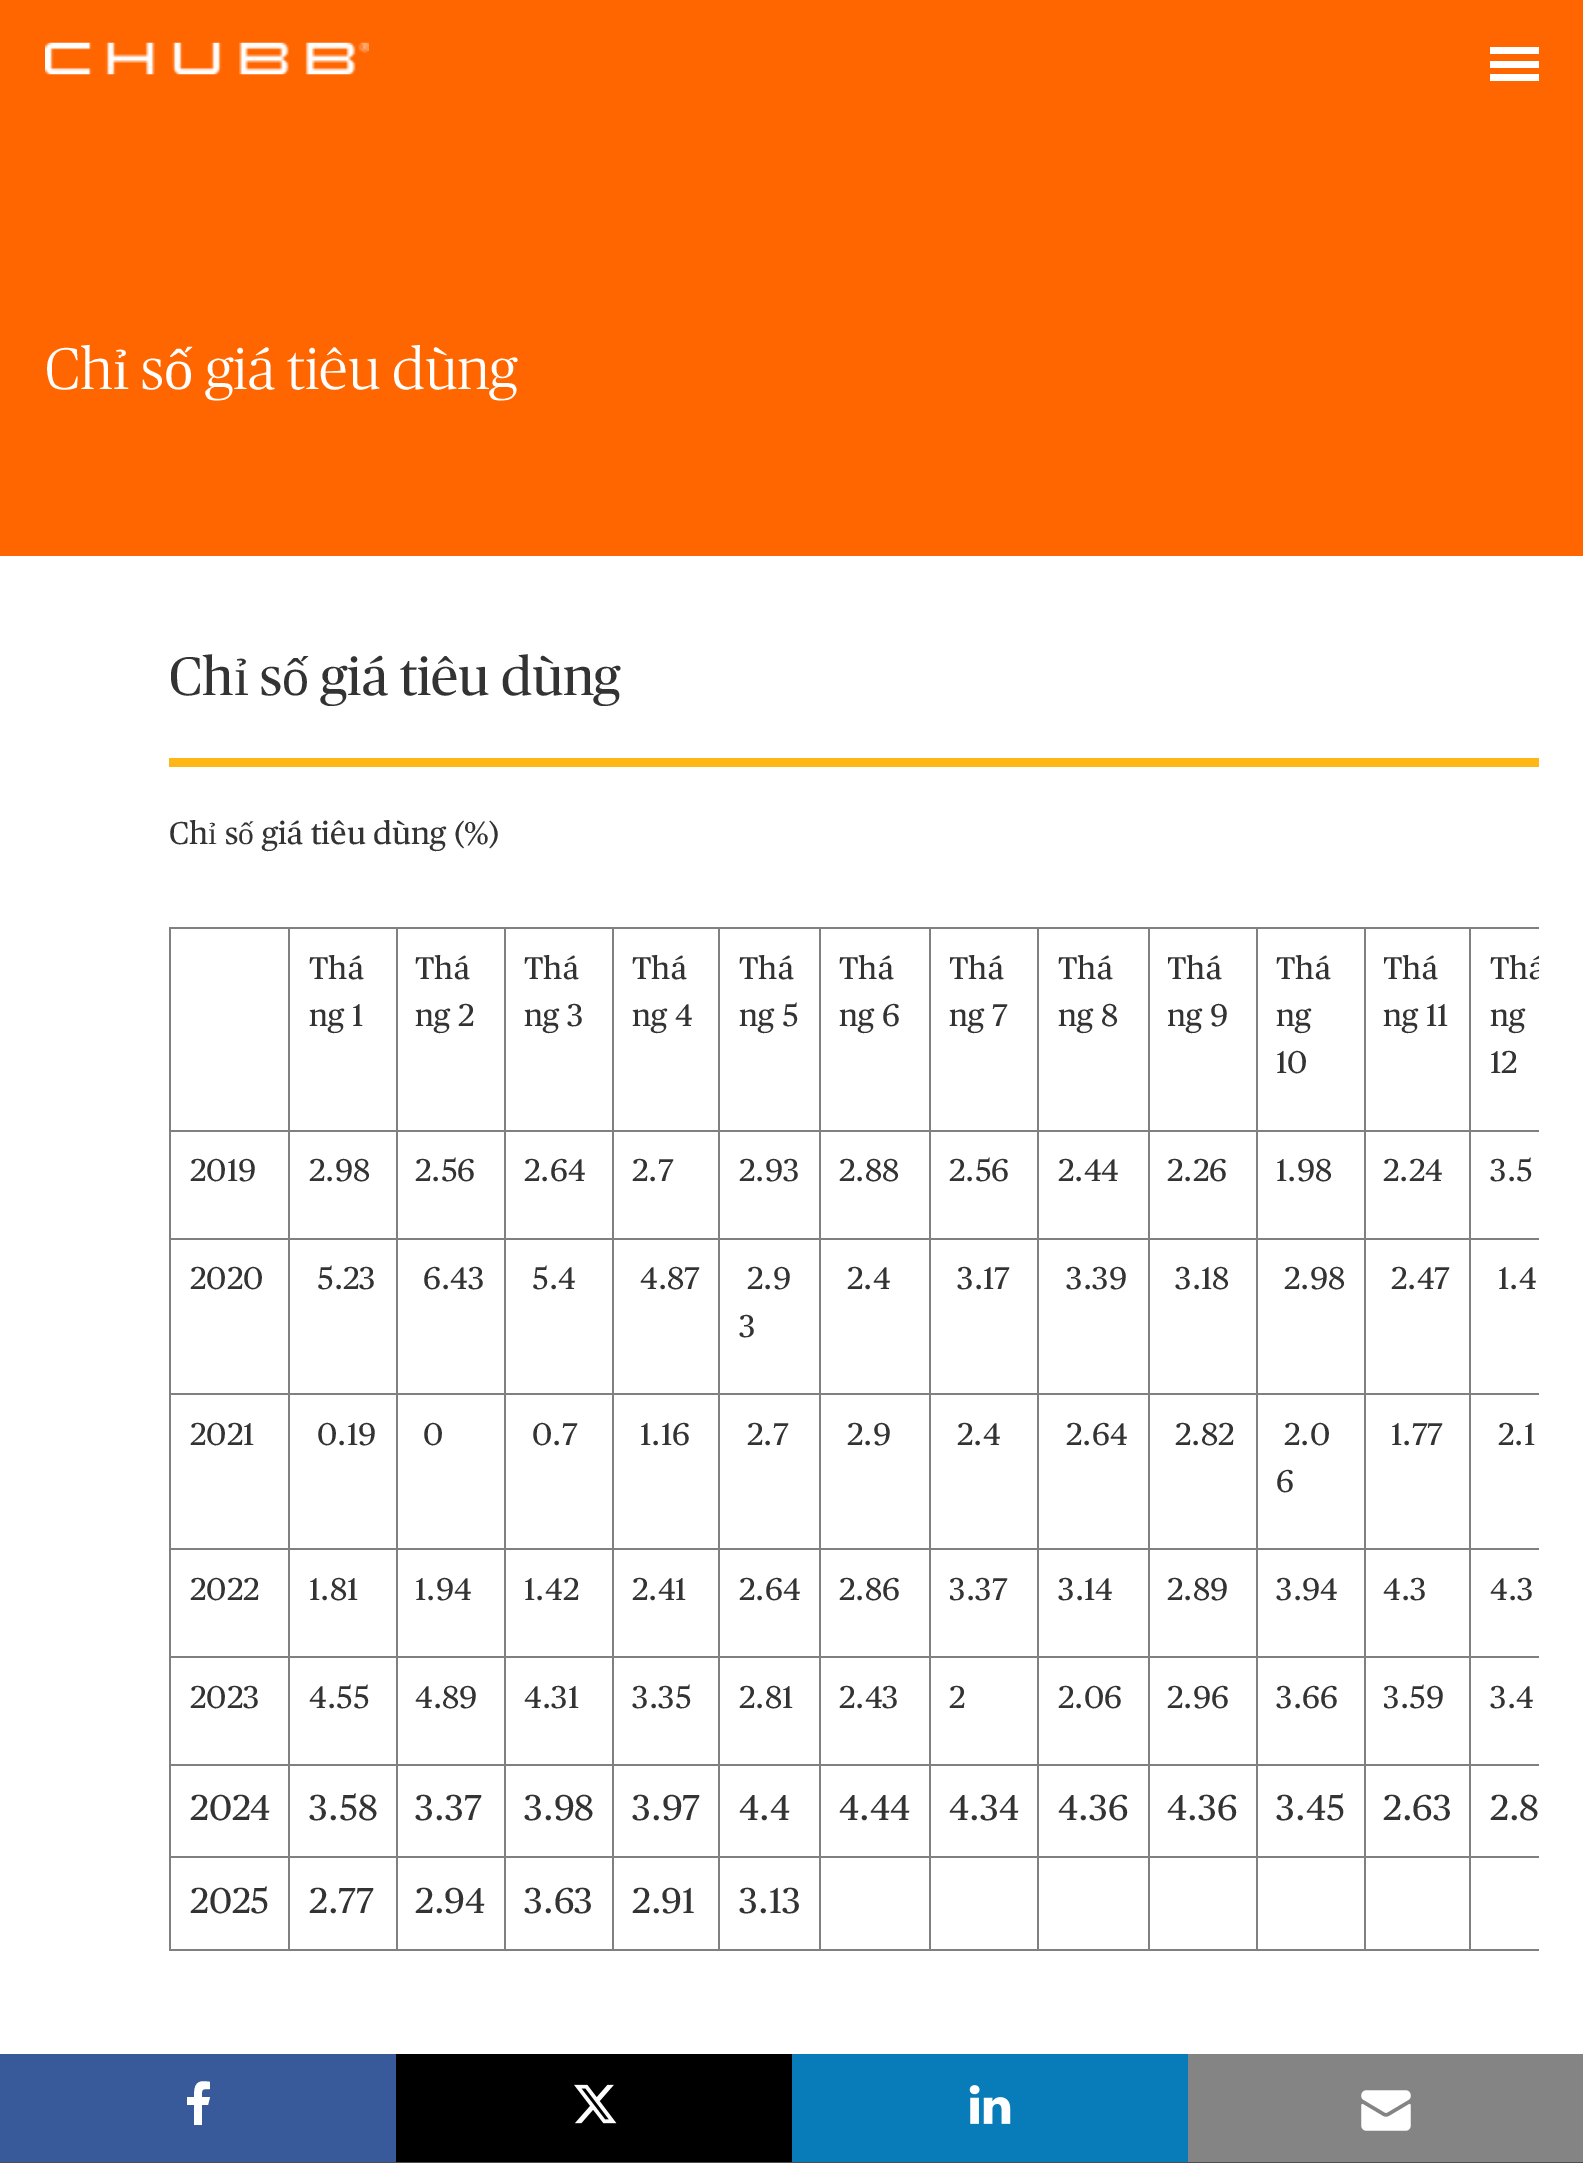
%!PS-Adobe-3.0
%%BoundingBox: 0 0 1583 2163
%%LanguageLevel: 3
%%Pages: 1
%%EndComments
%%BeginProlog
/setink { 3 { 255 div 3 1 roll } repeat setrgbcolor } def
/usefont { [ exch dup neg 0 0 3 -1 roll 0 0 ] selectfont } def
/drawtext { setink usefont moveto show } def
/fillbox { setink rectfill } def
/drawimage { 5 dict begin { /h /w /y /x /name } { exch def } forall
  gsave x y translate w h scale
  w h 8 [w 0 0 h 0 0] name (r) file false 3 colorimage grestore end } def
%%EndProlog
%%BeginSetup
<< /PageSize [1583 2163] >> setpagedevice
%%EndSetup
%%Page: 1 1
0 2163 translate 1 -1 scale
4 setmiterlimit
0 0 1583 2163 255 255 255 fillbox
0 0 1583 556 255 102 0 fillbox
(assets/img1.rgb) 45 42 324 33 drawimage
1490 47 49 7 255 255 255 fillbox
1490 61 49 7 255 255 255 fillbox
1490 74 49 7 255 255 255 fillbox
(Ch) 45 389 /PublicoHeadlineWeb-Light 58.5 255 255 255 drawtext
(ỉ) 113 389 /LiberationSerif-Regular 58.5 255 255 255 drawtext
(s) 141 389 /PublicoHeadlineWeb-Light 58.5 255 255 255 drawtext
(ố) 164 389 /LiberationSerif-Regular 58.5 255 255 255 drawtext
(giá tiêu dùng) 206 389 /PublicoHeadlineWeb-Light 58.5 255 255 255 drawtext
169 758 1370 9 255 182 23 fillbox
(Ch) 169 695 /PublicoHeadlineWeb-Regular 54 51 51 51 drawtext
(ỉ) 234 695 /LiberationSerif-Regular 54 51 51 51 drawtext
(s) 260 695 /PublicoHeadlineWeb-Regular 54 51 51 51 drawtext
(ố) 282 695 /LiberationSerif-Regular 54 51 51 51 drawtext
(giá tiêu dùng) 321 695 /PublicoHeadlineWeb-Regular 54 51 51 51 drawtext
(Ch) 169 844 /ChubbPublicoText-Regular 31.5 51 51 51 drawtext
(ỉ) 208 844 /LiberationSerif-Regular 31.5 51 51 51 drawtext
(s) 225 844 /ChubbPublicoText-Regular 31.5 51 51 51 drawtext
(ố) 238 844 /LiberationSerif-Regular 31.5 51 51 51 drawtext
(giá tiêu dùng \(%\)) 262 844 /ChubbPublicoText-Regular 31.5 51 51 51 drawtext
169 927 1370 2 128 128 128 fillbox
169 1949 1370 2 128 128 128 fillbox
169 927 2 1024 128 128 128 fillbox
1469 1130 70 2 128 128 128 fillbox
1469 1238 70 2 128 128 128 fillbox
1469 1393 70 2 128 128 128 fillbox
1469 1548 70 2 128 128 128 fillbox
1469 1656 70 2 128 128 128 fillbox
1469 1764 70 2 128 128 128 fillbox
1469 1856 70 2 128 128 128 fillbox
1469 1856 2 95 128 128 128 fillbox
1364 1856 108 2 128 128 128 fillbox
1469 1764 2 95 128 128 128 fillbox
1364 1764 108 2 128 128 128 fillbox
1469 1656 2 110 128 128 128 fillbox
1364 1656 108 2 128 128 128 fillbox
1469 1548 2 110 128 128 128 fillbox
1364 1548 108 2 128 128 128 fillbox
1469 1393 2 157 128 128 128 fillbox
1364 1393 108 2 128 128 128 fillbox
1469 1238 2 157 128 128 128 fillbox
1364 1238 108 2 128 128 128 fillbox
1469 1130 2 110 128 128 128 fillbox
1364 1130 108 2 128 128 128 fillbox
1364 1856 2 95 128 128 128 fillbox
1256 1856 110 2 128 128 128 fillbox
1364 1764 2 95 128 128 128 fillbox
1256 1764 110 2 128 128 128 fillbox
1364 1656 2 110 128 128 128 fillbox
1256 1656 110 2 128 128 128 fillbox
1364 1548 2 110 128 128 128 fillbox
1256 1548 110 2 128 128 128 fillbox
1364 1393 2 157 128 128 128 fillbox
1256 1393 110 2 128 128 128 fillbox
1364 1238 2 157 128 128 128 fillbox
1256 1238 110 2 128 128 128 fillbox
1364 1130 2 110 128 128 128 fillbox
1256 1130 110 2 128 128 128 fillbox
1256 1856 2 95 128 128 128 fillbox
1148 1856 110 2 128 128 128 fillbox
1256 1764 2 95 128 128 128 fillbox
1148 1764 110 2 128 128 128 fillbox
1256 1656 2 110 128 128 128 fillbox
1148 1656 110 2 128 128 128 fillbox
1256 1548 2 110 128 128 128 fillbox
1148 1548 110 2 128 128 128 fillbox
1256 1393 2 157 128 128 128 fillbox
1148 1393 110 2 128 128 128 fillbox
1256 1238 2 157 128 128 128 fillbox
1148 1238 110 2 128 128 128 fillbox
1256 1130 2 110 128 128 128 fillbox
1148 1130 110 2 128 128 128 fillbox
1148 1856 2 95 128 128 128 fillbox
1037 1856 113 2 128 128 128 fillbox
1148 1764 2 95 128 128 128 fillbox
1037 1764 113 2 128 128 128 fillbox
1148 1656 2 110 128 128 128 fillbox
1037 1656 113 2 128 128 128 fillbox
1148 1548 2 110 128 128 128 fillbox
1037 1548 113 2 128 128 128 fillbox
1148 1393 2 157 128 128 128 fillbox
1037 1393 113 2 128 128 128 fillbox
1148 1238 2 157 128 128 128 fillbox
1037 1238 113 2 128 128 128 fillbox
1148 1130 2 110 128 128 128 fillbox
1037 1130 113 2 128 128 128 fillbox
1037 1856 2 95 128 128 128 fillbox
929 1856 111 2 128 128 128 fillbox
1037 1764 2 95 128 128 128 fillbox
929 1764 111 2 128 128 128 fillbox
1037 1656 2 110 128 128 128 fillbox
929 1656 111 2 128 128 128 fillbox
1037 1548 2 110 128 128 128 fillbox
929 1548 111 2 128 128 128 fillbox
1037 1393 2 157 128 128 128 fillbox
929 1393 111 2 128 128 128 fillbox
1037 1238 2 157 128 128 128 fillbox
929 1238 111 2 128 128 128 fillbox
1037 1130 2 110 128 128 128 fillbox
929 1130 111 2 128 128 128 fillbox
929 1856 2 95 128 128 128 fillbox
819 1856 113 2 128 128 128 fillbox
929 1764 2 95 128 128 128 fillbox
819 1764 113 2 128 128 128 fillbox
929 1656 2 110 128 128 128 fillbox
819 1656 113 2 128 128 128 fillbox
929 1548 2 110 128 128 128 fillbox
819 1548 113 2 128 128 128 fillbox
929 1393 2 157 128 128 128 fillbox
819 1393 113 2 128 128 128 fillbox
929 1238 2 157 128 128 128 fillbox
819 1238 113 2 128 128 128 fillbox
929 1130 2 110 128 128 128 fillbox
819 1130 113 2 128 128 128 fillbox
819 1856 2 95 128 128 128 fillbox
718 1856 103 2 128 128 128 fillbox
819 1764 2 95 128 128 128 fillbox
718 1764 103 2 128 128 128 fillbox
819 1656 2 110 128 128 128 fillbox
718 1656 103 2 128 128 128 fillbox
819 1548 2 110 128 128 128 fillbox
718 1548 103 2 128 128 128 fillbox
819 1393 2 157 128 128 128 fillbox
718 1393 103 2 128 128 128 fillbox
819 1238 2 157 128 128 128 fillbox
718 1238 103 2 128 128 128 fillbox
819 1130 2 110 128 128 128 fillbox
718 1130 103 2 128 128 128 fillbox
718 1856 2 95 128 128 128 fillbox
612 1856 108 2 128 128 128 fillbox
718 1764 2 95 128 128 128 fillbox
612 1764 108 2 128 128 128 fillbox
718 1656 2 110 128 128 128 fillbox
612 1656 108 2 128 128 128 fillbox
718 1548 2 110 128 128 128 fillbox
612 1548 108 2 128 128 128 fillbox
718 1393 2 157 128 128 128 fillbox
612 1393 108 2 128 128 128 fillbox
718 1238 2 157 128 128 128 fillbox
612 1238 108 2 128 128 128 fillbox
718 1130 2 110 128 128 128 fillbox
612 1130 108 2 128 128 128 fillbox
612 1856 2 95 128 128 128 fillbox
504 1856 110 2 128 128 128 fillbox
612 1764 2 95 128 128 128 fillbox
504 1764 110 2 128 128 128 fillbox
612 1656 2 110 128 128 128 fillbox
504 1656 110 2 128 128 128 fillbox
612 1548 2 110 128 128 128 fillbox
504 1548 110 2 128 128 128 fillbox
612 1393 2 157 128 128 128 fillbox
504 1393 110 2 128 128 128 fillbox
612 1238 2 157 128 128 128 fillbox
504 1238 110 2 128 128 128 fillbox
612 1130 2 110 128 128 128 fillbox
504 1130 110 2 128 128 128 fillbox
504 1856 2 95 128 128 128 fillbox
396 1856 110 2 128 128 128 fillbox
504 1764 2 95 128 128 128 fillbox
396 1764 110 2 128 128 128 fillbox
504 1656 2 110 128 128 128 fillbox
396 1656 110 2 128 128 128 fillbox
504 1548 2 110 128 128 128 fillbox
396 1548 110 2 128 128 128 fillbox
504 1393 2 157 128 128 128 fillbox
396 1393 110 2 128 128 128 fillbox
504 1238 2 157 128 128 128 fillbox
396 1238 110 2 128 128 128 fillbox
504 1130 2 110 128 128 128 fillbox
396 1130 110 2 128 128 128 fillbox
396 1856 2 95 128 128 128 fillbox
288 1856 110 2 128 128 128 fillbox
396 1764 2 95 128 128 128 fillbox
288 1764 110 2 128 128 128 fillbox
396 1656 2 110 128 128 128 fillbox
288 1656 110 2 128 128 128 fillbox
396 1548 2 110 128 128 128 fillbox
288 1548 110 2 128 128 128 fillbox
396 1393 2 157 128 128 128 fillbox
288 1393 110 2 128 128 128 fillbox
396 1238 2 157 128 128 128 fillbox
288 1238 110 2 128 128 128 fillbox
396 1130 2 110 128 128 128 fillbox
288 1130 110 2 128 128 128 fillbox
288 1856 2 95 128 128 128 fillbox
169 1856 121 2 128 128 128 fillbox
288 1764 2 95 128 128 128 fillbox
169 1764 121 2 128 128 128 fillbox
288 1656 2 110 128 128 128 fillbox
169 1656 121 2 128 128 128 fillbox
288 1548 2 110 128 128 128 fillbox
169 1548 121 2 128 128 128 fillbox
288 1393 2 157 128 128 128 fillbox
169 1393 121 2 128 128 128 fillbox
288 1238 2 157 128 128 128 fillbox
169 1238 121 2 128 128 128 fillbox
288 1130 2 110 128 128 128 fillbox
169 1130 121 2 128 128 128 fillbox
288 927 2 205 128 128 128 fillbox
(Thá) 309 979 /ChubbPublicoText-Regular 31.5 51 51 51 drawtext
(ng 1) 309 1026 /ChubbPublicoText-Regular 31.5 51 51 51 drawtext
396 927 2 205 128 128 128 fillbox
(Thá) 415 979 /ChubbPublicoText-Regular 31.5 51 51 51 drawtext
(ng 2) 415 1026 /ChubbPublicoText-Regular 31.5 51 51 51 drawtext
504 927 2 205 128 128 128 fillbox
(Thá) 524 979 /ChubbPublicoText-Regular 31.5 51 51 51 drawtext
(ng 3) 524 1026 /ChubbPublicoText-Regular 31.5 51 51 51 drawtext
612 927 2 205 128 128 128 fillbox
(Thá) 632 979 /ChubbPublicoText-Regular 31.5 51 51 51 drawtext
(ng 4) 632 1026 /ChubbPublicoText-Regular 31.5 51 51 51 drawtext
718 927 2 205 128 128 128 fillbox
(Thá) 739 979 /ChubbPublicoText-Regular 31.5 51 51 51 drawtext
(ng 5) 739 1026 /ChubbPublicoText-Regular 31.5 51 51 51 drawtext
819 927 2 205 128 128 128 fillbox
(Thá) 839 979 /ChubbPublicoText-Regular 31.5 51 51 51 drawtext
(ng 6) 839 1026 /ChubbPublicoText-Regular 31.5 51 51 51 drawtext
929 927 2 205 128 128 128 fillbox
gsave
950 947 69 95 rectclip
(Thá) 949 979 /ChubbPublicoText-Regular 31.5 51 51 51 drawtext
grestore
(ng 7) 949 1026 /ChubbPublicoText-Regular 31.5 51 51 51 drawtext
1037 927 2 205 128 128 128 fillbox
(Thá) 1058 979 /ChubbPublicoText-Regular 31.5 51 51 51 drawtext
(ng 8) 1058 1026 /ChubbPublicoText-Regular 31.5 51 51 51 drawtext
1148 927 2 205 128 128 128 fillbox
gsave
1168 947 70 95 rectclip
(Thá) 1167 979 /ChubbPublicoText-Regular 31.5 51 51 51 drawtext
(ng 9) 1167 1026 /ChubbPublicoText-Regular 31.5 51 51 51 drawtext
grestore
1256 927 2 205 128 128 128 fillbox
(Thá) 1276 979 /ChubbPublicoText-Regular 31.5 51 51 51 drawtext
(ng) 1276 1026 /ChubbPublicoText-Regular 31.5 51 51 51 drawtext
(10) 1276 1073 /ChubbPublicoText-Regular 31.5 51 51 51 drawtext
1364 927 2 205 128 128 128 fillbox
gsave
1384 947 67 95 rectclip
(Thá) 1383 979 /ChubbPublicoText-Regular 31.5 51 51 51 drawtext
grestore
(ng 11) 1383 1026 /ChubbPublicoText-Regular 31.5 51 51 51 drawtext
1469 927 2 205 128 128 128 fillbox
gsave
1490 947 49 142 rectclip
(Thá) 1490 979 /ChubbPublicoText-Regular 31.5 51 51 51 drawtext
grestore
(ng) 1490 1026 /ChubbPublicoText-Regular 31.5 51 51 51 drawtext
(12) 1490 1073 /ChubbPublicoText-Regular 31.5 51 51 51 drawtext
(2019) 190 1181 /ChubbPublicoText-Regular 31.5 51 51 51 drawtext
(2.98) 309 1181 /ChubbPublicoText-Regular 31.5 51 51 51 drawtext
(2.56) 415 1181 /ChubbPublicoText-Regular 31.5 51 51 51 drawtext
(2.64) 524 1181 /ChubbPublicoText-Regular 31.5 51 51 51 drawtext
(2.7) 632 1181 /ChubbPublicoText-Regular 31.5 51 51 51 drawtext
(2.93) 739 1181 /ChubbPublicoText-Regular 31.5 51 51 51 drawtext
(2.88) 839 1181 /ChubbPublicoText-Regular 31.5 51 51 51 drawtext
(2.56) 949 1181 /ChubbPublicoText-Regular 31.5 51 51 51 drawtext
(2.44) 1058 1181 /ChubbPublicoText-Regular 31.5 51 51 51 drawtext
(2.26) 1167 1181 /ChubbPublicoText-Regular 31.5 51 51 51 drawtext
(1.98) 1276 1181 /ChubbPublicoText-Regular 31.5 51 51 51 drawtext
(2.24) 1383 1181 /ChubbPublicoText-Regular 31.5 51 51 51 drawtext
(3.5) 1490 1181 /ChubbPublicoText-Regular 31.5 51 51 51 drawtext
(2020) 190 1289 /ChubbPublicoText-Regular 31.5 51 51 51 drawtext
(5.23) 317 1289 /ChubbPublicoText-Regular 31.5 51 51 51 drawtext
(6.43) 423 1289 /ChubbPublicoText-Regular 31.5 51 51 51 drawtext
(5.4) 532 1289 /ChubbPublicoText-Regular 31.5 51 51 51 drawtext
(4.87) 640 1289 /ChubbPublicoText-Regular 31.5 51 51 51 drawtext
(2.9) 747 1289 /ChubbPublicoText-Regular 31.5 51 51 51 drawtext
(3) 739 1337 /ChubbPublicoText-Regular 31.5 51 51 51 drawtext
(2.4) 847 1289 /ChubbPublicoText-Regular 31.5 51 51 51 drawtext
(3.17) 957 1289 /ChubbPublicoText-Regular 31.5 51 51 51 drawtext
(3.39) 1066 1289 /ChubbPublicoText-Regular 31.5 51 51 51 drawtext
(3.18) 1175 1289 /ChubbPublicoText-Regular 31.5 51 51 51 drawtext
(2.98) 1284 1289 /ChubbPublicoText-Regular 31.5 51 51 51 drawtext
(2.47) 1391 1289 /ChubbPublicoText-Regular 31.5 51 51 51 drawtext
(1.4) 1498 1289 /ChubbPublicoText-Regular 31.5 51 51 51 drawtext
(2021) 190 1445 /ChubbPublicoText-Regular 31.5 51 51 51 drawtext
(0.19) 317 1445 /ChubbPublicoText-Regular 31.5 51 51 51 drawtext
(0) 423 1445 /ChubbPublicoText-Regular 31.5 51 51 51 drawtext
(0.7) 532 1445 /ChubbPublicoText-Regular 31.5 51 51 51 drawtext
(1.16) 640 1445 /ChubbPublicoText-Regular 31.5 51 51 51 drawtext
(2.7) 747 1445 /ChubbPublicoText-Regular 31.5 51 51 51 drawtext
(2.9) 847 1445 /ChubbPublicoText-Regular 31.5 51 51 51 drawtext
(2.4) 957 1445 /ChubbPublicoText-Regular 31.5 51 51 51 drawtext
(2.64) 1066 1445 /ChubbPublicoText-Regular 31.5 51 51 51 drawtext
(2.82) 1175 1445 /ChubbPublicoText-Regular 31.5 51 51 51 drawtext
(2.0) 1284 1445 /ChubbPublicoText-Regular 31.5 51 51 51 drawtext
(6) 1276 1492 /ChubbPublicoText-Regular 31.5 51 51 51 drawtext
(1.77) 1391 1445 /ChubbPublicoText-Regular 31.5 51 51 51 drawtext
(2.1) 1498 1445 /ChubbPublicoText-Regular 31.5 51 51 51 drawtext
(2022) 190 1600 /ChubbPublicoText-Regular 31.5 51 51 51 drawtext
(1.81) 309 1600 /ChubbPublicoText-Regular 31.5 51 51 51 drawtext
(1.94) 415 1600 /ChubbPublicoText-Regular 31.5 51 51 51 drawtext
(1.42) 524 1600 /ChubbPublicoText-Regular 31.5 51 51 51 drawtext
(2.41) 632 1600 /ChubbPublicoText-Regular 31.5 51 51 51 drawtext
(2.64) 739 1600 /ChubbPublicoText-Regular 31.5 51 51 51 drawtext
(2.86) 839 1600 /ChubbPublicoText-Regular 31.5 51 51 51 drawtext
gsave
950 1568 69 48 rectclip
(3.37) 949 1600 /ChubbPublicoText-Regular 31.5 51 51 51 drawtext
grestore
(3.14) 1058 1600 /ChubbPublicoText-Regular 31.5 51 51 51 drawtext
(2.89) 1167 1600 /ChubbPublicoText-Regular 31.5 51 51 51 drawtext
(3.94) 1276 1600 /ChubbPublicoText-Regular 31.5 51 51 51 drawtext
(4.3) 1383 1600 /ChubbPublicoText-Regular 31.5 51 51 51 drawtext
(4.3) 1490 1600 /ChubbPublicoText-Regular 31.5 51 51 51 drawtext
(2023) 190 1708 /ChubbPublicoText-Regular 31.5 51 51 51 drawtext
(4.55) 309 1708 /ChubbPublicoText-Regular 31.5 51 51 51 drawtext
(4.89) 415 1708 /ChubbPublicoText-Regular 31.5 51 51 51 drawtext
(4.31) 524 1708 /ChubbPublicoText-Regular 31.5 51 51 51 drawtext
(3.35) 632 1708 /ChubbPublicoText-Regular 31.5 51 51 51 drawtext
(2.81) 739 1708 /ChubbPublicoText-Regular 31.5 51 51 51 drawtext
(2.43) 839 1708 /ChubbPublicoText-Regular 31.5 51 51 51 drawtext
(2) 949 1708 /ChubbPublicoText-Regular 31.5 51 51 51 drawtext
(2.06) 1058 1708 /ChubbPublicoText-Regular 31.5 51 51 51 drawtext
(2.96) 1167 1708 /ChubbPublicoText-Regular 31.5 51 51 51 drawtext
(3.66) 1276 1708 /ChubbPublicoText-Regular 31.5 51 51 51 drawtext
gsave
1384 1676 67 48 rectclip
(3.59) 1383 1708 /ChubbPublicoText-Regular 31.5 51 51 51 drawtext
grestore
(3.4) 1490 1708 /ChubbPublicoText-Regular 31.5 51 51 51 drawtext
(2024) 190 1820 /ChubbPublicoText-Regular 36 51 51 51 drawtext
(3.58) 309 1820 /ChubbPublicoText-Regular 36 51 51 51 drawtext
(3.37) 415 1820 /ChubbPublicoText-Regular 36 51 51 51 drawtext
(3.98) 524 1820 /ChubbPublicoText-Regular 36 51 51 51 drawtext
(3.97) 632 1820 /ChubbPublicoText-Regular 36 51 51 51 drawtext
(4.4) 739 1820 /ChubbPublicoText-Regular 36 51 51 51 drawtext
(4.44) 839 1820 /ChubbPublicoText-Regular 36 51 51 51 drawtext
(4.34) 949 1820 /ChubbPublicoText-Regular 36 51 51 51 drawtext
(4.36) 1058 1820 /ChubbPublicoText-Regular 36 51 51 51 drawtext
(4.36) 1167 1820 /ChubbPublicoText-Regular 36 51 51 51 drawtext
(3.45) 1276 1820 /ChubbPublicoText-Regular 36 51 51 51 drawtext
(2.63) 1383 1820 /ChubbPublicoText-Regular 36 51 51 51 drawtext
(2.8) 1490 1820 /ChubbPublicoText-Regular 36 51 51 51 drawtext
(2025) 190 1913 /ChubbPublicoText-Regular 36 51 51 51 drawtext
(2.77) 309 1913 /ChubbPublicoText-Regular 36 51 51 51 drawtext
(2.94) 415 1913 /ChubbPublicoText-Regular 36 51 51 51 drawtext
(3.63) 524 1913 /ChubbPublicoText-Regular 36 51 51 51 drawtext
(2.91) 632 1913 /ChubbPublicoText-Regular 36 51 51 51 drawtext
(3.13) 739 1913 /ChubbPublicoText-Regular 36 51 51 51 drawtext
0 2054 396 108 56 90 155 fillbox
255 255 255 setink
210 2082 moveto 210 2089 lineto 201 2089 202 2089 202 2097 curveto 210 2097 lineto 208 2105 lineto 202 2105 lineto 202 2125 lineto 194 2125 lineto 194 2105 lineto 187 2105 lineto 187 2097 lineto 194 2097 lineto 194 2085 196 2079 210 2082 curveto closepath fill
396 2054 396 108 0 0 0 fillbox
(assets/img2.rgb) 574 2084 43 40 drawimage
792 2054 396 108 8 124 185 fillbox
(assets/img3.rgb) 969 2085 42 39 drawimage
1188 2054 395 108 132 132 132 fillbox
(assets/img4.rgb) 1361 2090 50 41 drawimage
0 2162 1583 1 76 78 83 fillbox
showpage
%%EOF
